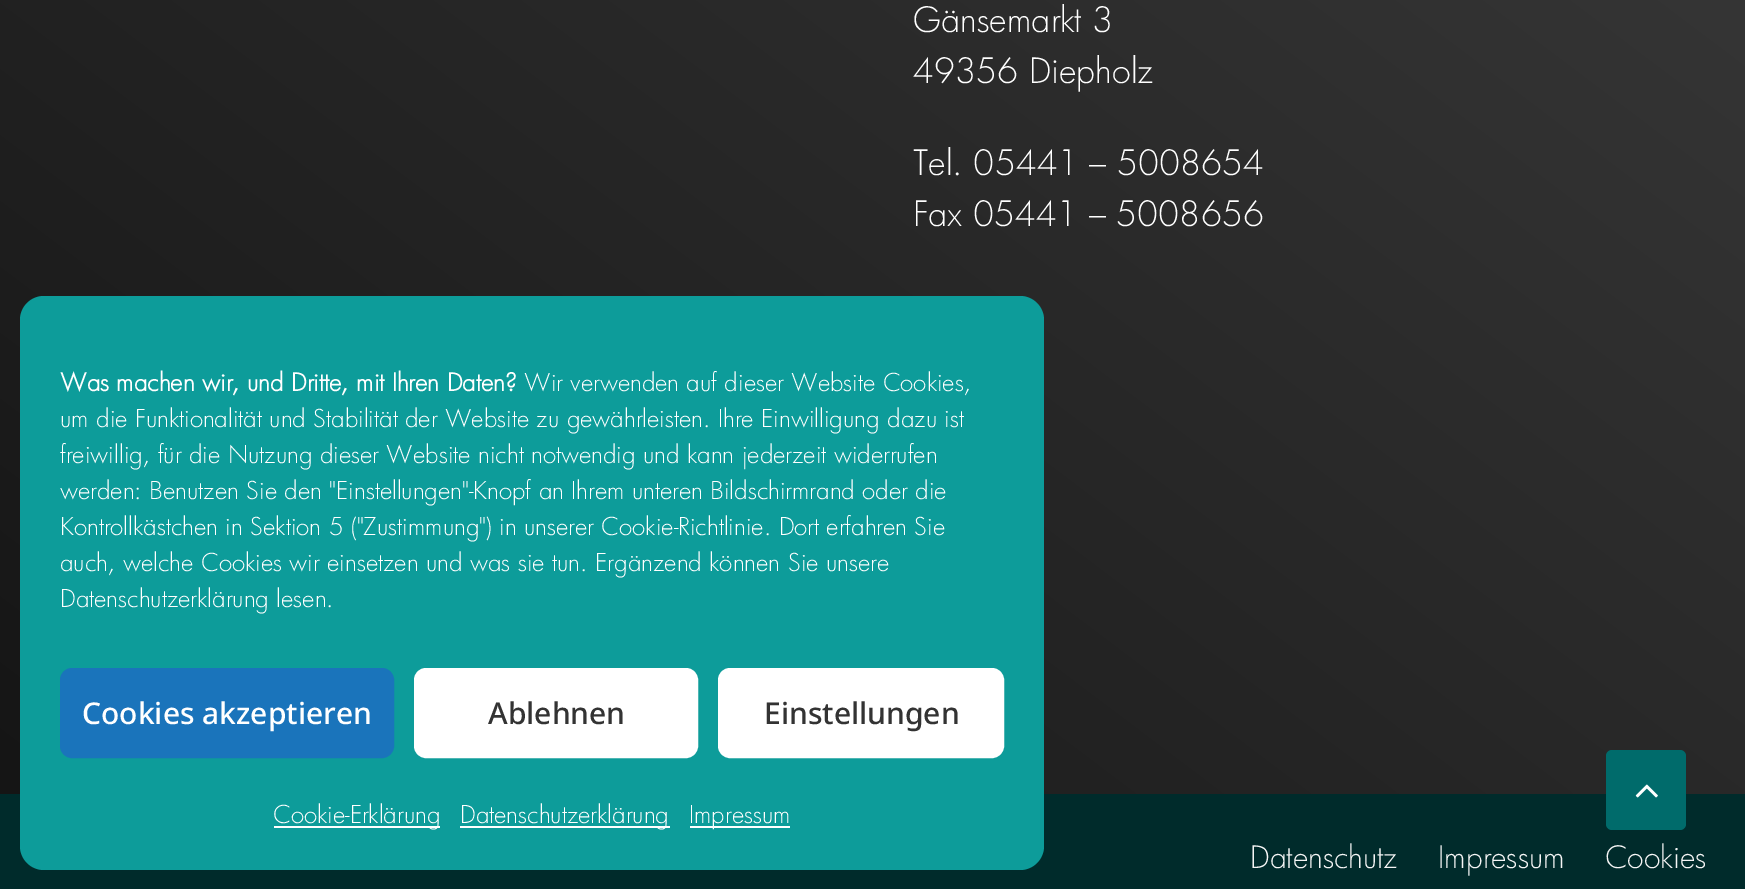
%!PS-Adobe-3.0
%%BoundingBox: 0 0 1745 889
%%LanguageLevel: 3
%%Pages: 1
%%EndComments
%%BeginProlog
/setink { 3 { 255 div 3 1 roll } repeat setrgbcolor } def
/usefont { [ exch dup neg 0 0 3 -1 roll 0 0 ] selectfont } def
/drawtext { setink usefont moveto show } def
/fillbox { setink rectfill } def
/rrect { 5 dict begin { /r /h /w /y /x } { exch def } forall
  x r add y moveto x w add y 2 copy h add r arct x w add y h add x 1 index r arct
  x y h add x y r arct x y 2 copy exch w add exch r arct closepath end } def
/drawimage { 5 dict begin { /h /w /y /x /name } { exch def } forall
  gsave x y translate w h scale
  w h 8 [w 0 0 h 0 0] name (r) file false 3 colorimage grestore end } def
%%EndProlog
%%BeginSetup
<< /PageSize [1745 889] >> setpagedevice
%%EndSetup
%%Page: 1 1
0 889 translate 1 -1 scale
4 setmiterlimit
0 0 1745 889 255 255 255 fillbox
gsave 0 0 moveto 1745 0 lineto 1745 794 lineto 0 794 lineto closepath clip newpath
<< /ShadingType 2 /ColorSpace /DeviceRGB /Coords [1556 -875 190 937] /Extend [true true] /Function << /FunctionType 2 /Domain [0 1] /C0 [0.251 0.251 0.251] /C1 [0.082 0.082 0.082] /N 1 >> >> shfill grestore
0 794 1745 95 0 43 43 fillbox
13 156 154 setink
20 296 1024 574 24 rrect fill
(Was machen wir, und Dritte, mit Ihren Daten?) 60 391 /Futura-Bold 24 255 255 255 drawtext
(Wir verwenden auf dieser Website Cookies,) 524 391 /Futura-Light 24 255 255 255 drawtext
(um die Funktionalität und Stabilität der Website zu gewährleisten. Ihre Einwilligung dazu ist) 60 427 /Futura-Light 24 255 255 255 drawtext
(freiwillig, für die Nutzung dieser Website nicht notwendig und kann jederzeit widerrufen) 60 463 /Futura-Light 24 255 255 255 drawtext
(werden: Benutzen Sie den "Einstellungen"-Knopf an Ihrem unteren Bildschirmrand oder die) 60 499 /Futura-Light 24 255 255 255 drawtext
(Kontrollkästchen in Sektion 5 \("Zustimmung"\) in unserer Cookie-Richtlinie. Dort erfahren Sie) 60 535 /Futura-Light 24 255 255 255 drawtext
(auch, welche Cookies wir einsetzen und was sie tun. Ergänzend können Sie unsere) 60 571 /Futura-Light 24 255 255 255 drawtext
(Datenschutzerklärung lesen.) 60 607 /Futura-Light 24 255 255 255 drawtext
26 116 187 setink
61 669 332 88 11 rrect gsave fill grestore
2 setlinewidth
stroke
(Cookies akzeptieren) 82 724 /NotoSans-Medium 30 255 255 255 drawtext
415 669 282 88 11 rrect gsave fill grestore
stroke
(Ablehnen) 488 724 /NotoSans-Medium 30 51 51 51 drawtext
255 255 255 setink
719 669 284 88 11 rrect gsave fill grestore
stroke
(Einstellungen) 764 724 /NotoSans-Medium 30 51 51 51 drawtext
274 826 166 2 255 255 255 fillbox
(Cookie-Erklärung) 273 823 /Futura-Light 24 255 255 255 drawtext
460 826 210 2 255 255 255 fillbox
(Datenschutzerklärung) 460 823 /Futura-Light 24 255 255 255 drawtext
690 826 100 2 255 255 255 fillbox
(Impressum) 689 823 /Futura-Light 24 255 255 255 drawtext
(Gänsemarkt 3) 913 32 /Futura-Light 34 255 255 255 drawtext
(49356 Diepholz) 913 83 /Futura-Light 34 255 255 255 drawtext
(Tel. 05441 – 5008654) 913 175 /Futura-Light 34 255 255 255 drawtext
(Fax 05441 – 5008656) 913 226 /Futura-Light 34 255 255 255 drawtext
(Datenschutz) 1250 868 /Futura-Light 30 245 245 245 drawtext
(Impressum) 1438 868 /Futura-Light 30 245 245 245 drawtext
(Cookies) 1605 868 /Futura-Light 30 245 245 245 drawtext
0 107 107 setink
1606 750 80 80 6 rrect fill
(assets/img1.rgb) 1635 784 23 14 drawimage
showpage
%%EOF
